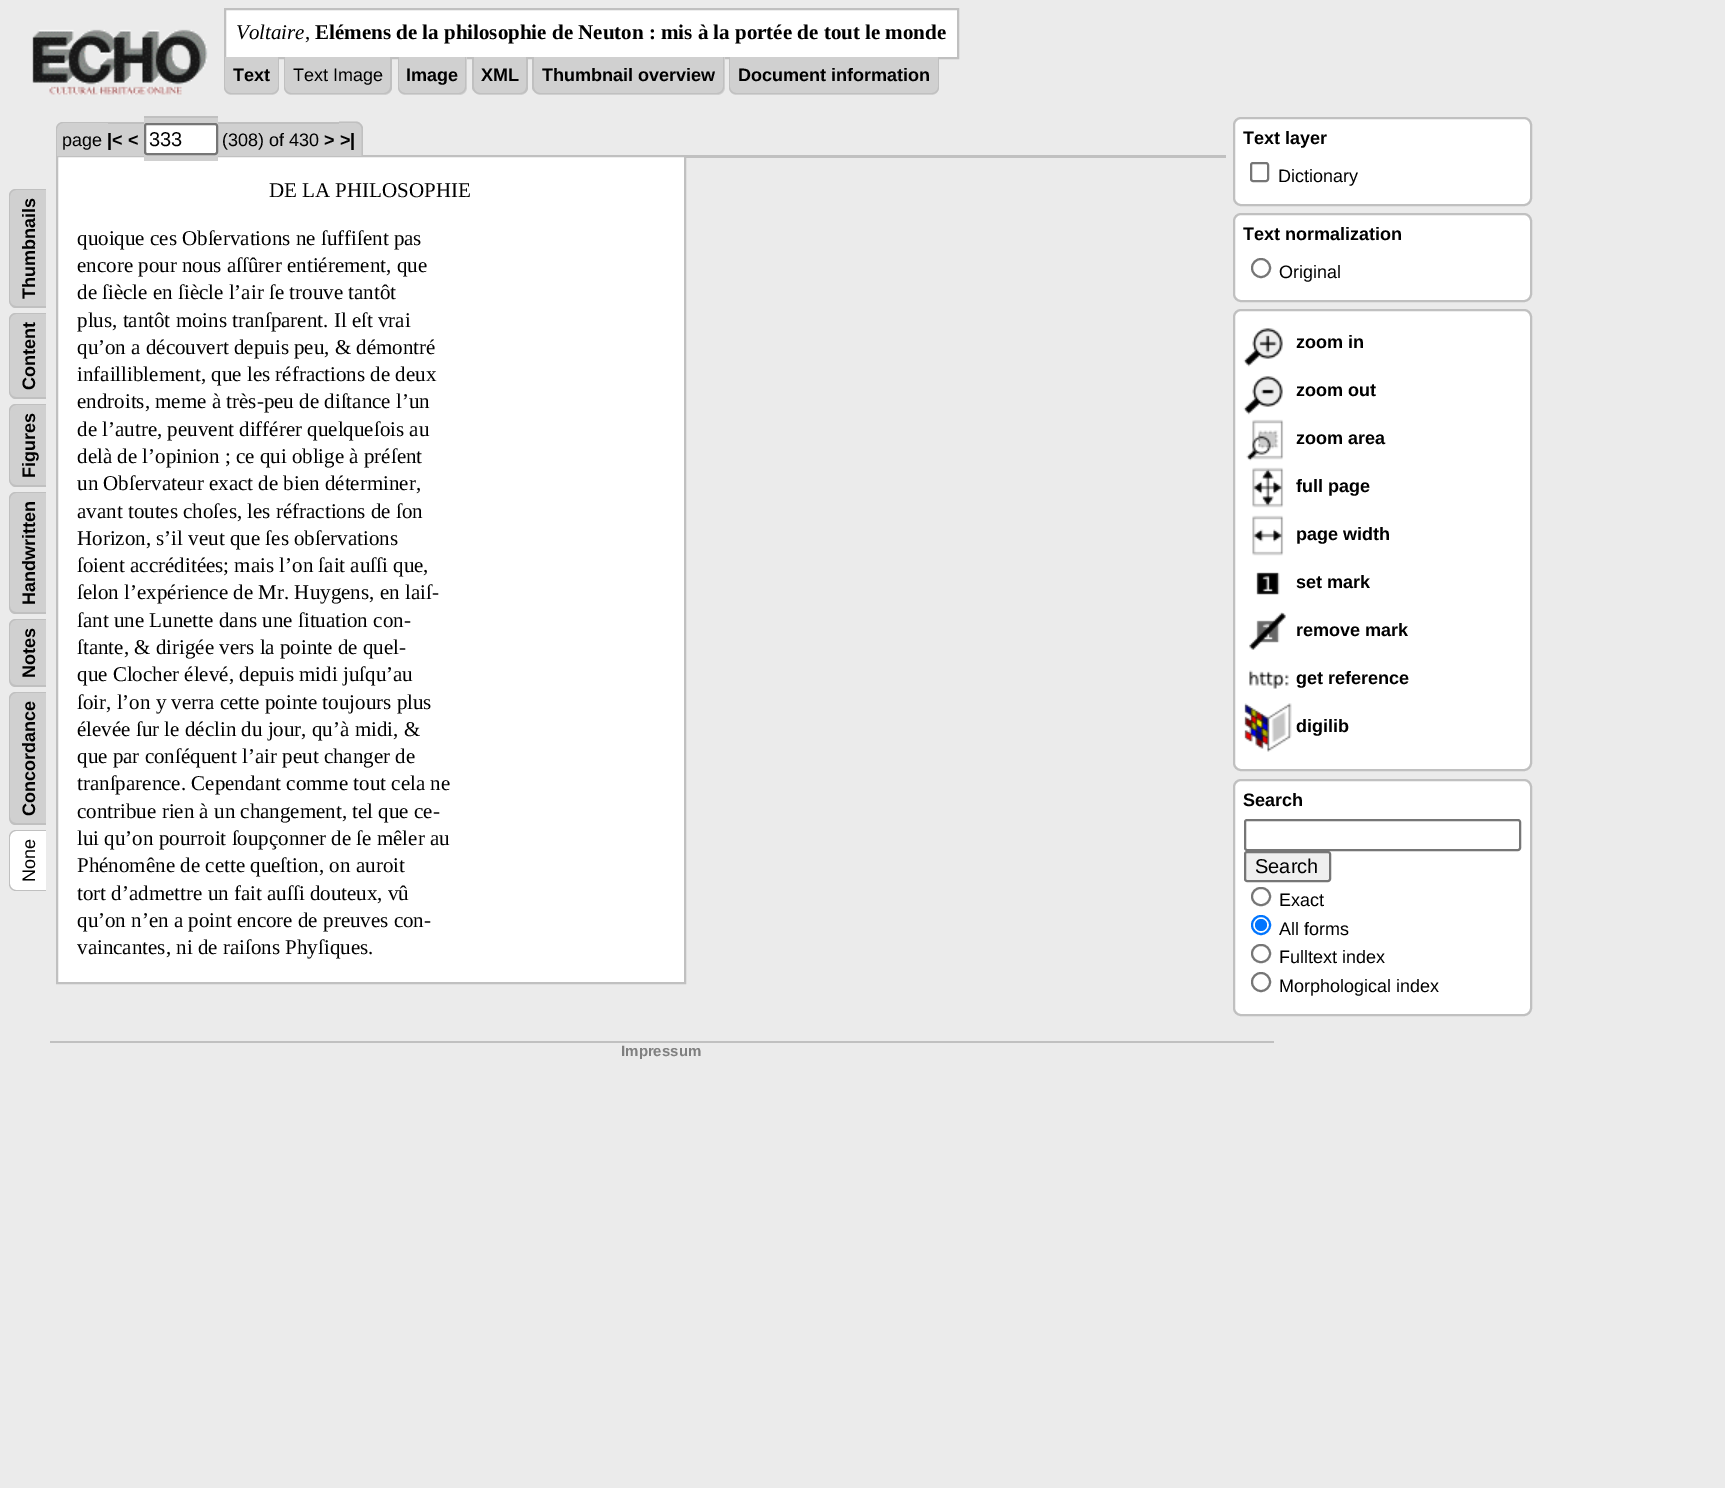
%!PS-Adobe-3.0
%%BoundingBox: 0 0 1725 1488
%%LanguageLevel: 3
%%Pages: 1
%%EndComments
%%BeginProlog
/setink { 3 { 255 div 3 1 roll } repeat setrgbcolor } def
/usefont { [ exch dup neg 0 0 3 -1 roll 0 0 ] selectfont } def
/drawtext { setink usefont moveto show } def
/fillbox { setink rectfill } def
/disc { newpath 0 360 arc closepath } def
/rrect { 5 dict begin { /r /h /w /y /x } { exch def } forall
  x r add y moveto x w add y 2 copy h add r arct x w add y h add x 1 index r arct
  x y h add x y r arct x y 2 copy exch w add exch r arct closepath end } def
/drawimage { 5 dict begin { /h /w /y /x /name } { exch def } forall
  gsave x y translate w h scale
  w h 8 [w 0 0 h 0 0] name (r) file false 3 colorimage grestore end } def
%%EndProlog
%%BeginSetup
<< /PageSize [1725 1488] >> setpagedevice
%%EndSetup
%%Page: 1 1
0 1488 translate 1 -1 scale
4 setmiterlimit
0 0 1725 1488 235 235 235 fillbox
(assets/img1.rgb) 32 29 176 66 drawimage
255 255 255 setink
225 9 moveto 958 9 lineto 958 58 lineto 225 58 lineto closepath gsave fill grestore
192 192 192 setink
2 setlinewidth
stroke
(Voltaire) 236 39 /LiberationSerif-Italic 21 0 0 0 drawtext
(,) 305 39 /LiberationSerif-Regular 21 0 0 0 drawtext
(Elémens de la philosophie de Neuton : mis à la portée de tout le monde) 315 39 /LiberationSerif-Bold 21 0 0 0 drawtext
208 208 208 setink
224 57 moveto 279 57 lineto 279 87 lineto 279 91.5 275.5 95 271 95 curveto 232 95 lineto 227.5 95 224 91.5 224 87 curveto closepath fill
192 192 192 setink
224 57 moveto 279 57 lineto 279 87 lineto 279 91 276 94 272 94 curveto 231 94 lineto 227 94 224 91 224 87 curveto closepath 225 57 moveto 278 57 lineto 278 87 lineto 278 90 275 93 272 93 curveto 231 93 lineto 228 93 225 90 225 87 curveto closepath eofill
(Text) 233 81 /LiberationSans-Bold 18 0 0 0 drawtext
208 208 208 setink
284 57 moveto 392 57 lineto 392 87 lineto 392 91.5 388.5 95 384 95 curveto 292 95 lineto 287.5 95 284 91.5 284 87 curveto closepath fill
192 192 192 setink
284 57 moveto 392 57 lineto 392 87 lineto 392 91 388 94 384 94 curveto 291 94 lineto 287 94 284 91 284 87 curveto closepath 285 57 moveto 390 57 lineto 390 87 lineto 390 90 387 93 384 93 curveto 291 93 lineto 288 93 285 90 285 87 curveto closepath eofill
(Text Image) 293 81 /LiberationSans-Regular 18 0 0 0 drawtext
208 208 208 setink
398 57 moveto 467 57 lineto 467 87 lineto 467 91.5 463.5 95 459 95 curveto 406 95 lineto 401.5 95 398 91.5 398 87 curveto closepath fill
192 192 192 setink
398 57 moveto 466 57 lineto 466 87 lineto 466 91 463 94 459 94 curveto 405 94 lineto 401 94 398 91 398 87 curveto closepath 399 57 moveto 465 57 lineto 465 87 lineto 465 90 462 93 459 93 curveto 405 93 lineto 402 93 399 90 399 87 curveto closepath eofill
(Image) 406 81 /LiberationSans-Bold 18 0 0 0 drawtext
208 208 208 setink
473 57 moveto 528 57 lineto 528 87 lineto 528 91.5 524.5 95 520 95 curveto 481 95 lineto 476.5 95 473 91.5 473 87 curveto closepath fill
192 192 192 setink
472 57 moveto 528 57 lineto 528 87 lineto 528 91 525 94 520 94 curveto 480 94 lineto 476 94 472 91 472 87 curveto closepath 474 57 moveto 526 57 lineto 526 87 lineto 526 90 524 93 520 93 curveto 480 93 lineto 477 93 474 90 474 87 curveto closepath eofill
(XML) 481 81 /LiberationSans-Bold 18 0 0 0 drawtext
208 208 208 setink
533 57 moveto 725 57 lineto 725 87 lineto 725 91.5 721.5 95 717 95 curveto 541 95 lineto 536.5 95 533 91.5 533 87 curveto closepath fill
192 192 192 setink
532 57 moveto 724 57 lineto 724 87 lineto 724 91 721 94 717 94 curveto 540 94 lineto 536 94 532 91 532 87 curveto closepath 534 57 moveto 723 57 lineto 723 87 lineto 723 90 720 93 717 93 curveto 540 93 lineto 537 93 534 90 534 87 curveto closepath eofill
(Thumbnail overview) 542 81 /LiberationSans-Bold 18 0 0 0 drawtext
208 208 208 setink
729 57 moveto 939 57 lineto 939 87 lineto 939 91.5 935.5 95 931 95 curveto 737 95 lineto 732.5 95 729 91.5 729 87 curveto closepath fill
192 192 192 setink
729 57 moveto 939 57 lineto 939 87 lineto 939 91 936 94 932 94 curveto 736 94 lineto 732 94 729 91 729 87 curveto closepath 730 57 moveto 938 57 lineto 938 87 lineto 938 90 935 93 932 93 curveto 736 93 lineto 733 93 730 90 730 87 curveto closepath eofill
(Document information) 738 81 /LiberationSans-Bold 18 0 0 0 drawtext
208 208 208 setink
9 300 moveto 9 196 lineto 9 192 12 189 16 189 curveto 46 189 lineto 46 308 lineto 16 308 lineto 12 308 9 304 9 300 curveto closepath fill
192 192 192 setink
9 300 moveto 9 196 lineto 9 192 12 189 16 189 curveto 46 189 lineto 46 308 lineto 16 308 lineto 12 308 9 304 9 300 curveto closepath 10 300 moveto 10 196 lineto 10 193 13 190 16 190 curveto 46 190 lineto 46 306 lineto 16 306 lineto 13 306 10 304 10 300 curveto closepath eofill
0 0 0 setink
gsave 35 299 translate -90 rotate 0 0 moveto (Thumbnails) show grestore
208 208 208 setink
9 391 moveto 9 320 lineto 9 316 12 313 16 313 curveto 46 313 lineto 46 399 lineto 16 399 lineto 12 399 9 395 9 391 curveto closepath fill
192 192 192 setink
9 391 moveto 9 320 lineto 9 316 12 313 16 313 curveto 46 313 lineto 46 399 lineto 16 399 lineto 12 399 9 395 9 391 curveto closepath 10 391 moveto 10 320 lineto 10 317 13 314 16 314 curveto 46 314 lineto 46 397 lineto 16 397 lineto 13 397 10 395 10 391 curveto closepath eofill
0 0 0 setink
gsave 35 390 translate -90 rotate 0 0 moveto (Content) show grestore
208 208 208 setink
9 479 moveto 9 411 lineto 9 407 12 404 16 404 curveto 46 404 lineto 46 487 lineto 16 487 lineto 12 487 9 483 9 479 curveto closepath fill
192 192 192 setink
9 479 moveto 9 411 lineto 9 407 12 404 16 404 curveto 46 404 lineto 46 487 lineto 16 487 lineto 12 487 9 483 9 479 curveto closepath 10 479 moveto 10 411 lineto 10 408 13 405 16 405 curveto 46 405 lineto 46 485 lineto 16 485 lineto 13 485 10 483 10 479 curveto closepath eofill
0 0 0 setink
gsave 35 478 translate -90 rotate 0 0 moveto (Figures) show grestore
208 208 208 setink
9 606 moveto 9 499 lineto 9 495 12 492 16 492 curveto 46 492 lineto 46 614 lineto 16 614 lineto 12 614 9 611 9 606 curveto closepath fill
192 192 192 setink
9 606 moveto 9 499 lineto 9 495 12 492 16 492 curveto 46 492 lineto 46 614 lineto 16 614 lineto 12 614 9 611 9 606 curveto closepath 10 606 moveto 10 499 lineto 10 496 13 493 16 493 curveto 46 493 lineto 46 612 lineto 16 612 lineto 13 612 10 610 10 606 curveto closepath eofill
0 0 0 setink
gsave 35 605 translate -90 rotate 0 0 moveto (Handwritten) show grestore
208 208 208 setink
9 679 moveto 9 626 lineto 9 622 12 619 16 619 curveto 46 619 lineto 46 687 lineto 16 687 lineto 12 687 9 684 9 679 curveto closepath fill
192 192 192 setink
9 679 moveto 9 626 lineto 9 622 12 619 16 619 curveto 46 619 lineto 46 687 lineto 16 687 lineto 12 687 9 684 9 679 curveto closepath 10 679 moveto 10 626 lineto 10 623 13 620 16 620 curveto 46 620 lineto 46 685 lineto 16 685 lineto 13 685 10 683 10 679 curveto closepath eofill
0 0 0 setink
gsave 35 678 translate -90 rotate 0 0 moveto (Notes) show grestore
208 208 208 setink
9 817 moveto 9 699 lineto 9 695 12 692 16 692 curveto 46 692 lineto 46 825 lineto 16 825 lineto 12 825 9 822 9 817 curveto closepath fill
192 192 192 setink
9 817 moveto 9 699 lineto 9 695 12 692 16 692 curveto 46 692 lineto 46 825 lineto 16 825 lineto 12 825 9 822 9 817 curveto closepath 10 817 moveto 10 699 lineto 10 696 13 693 16 693 curveto 46 693 lineto 46 823 lineto 16 823 lineto 13 823 10 821 10 817 curveto closepath eofill
0 0 0 setink
gsave 35 816 translate -90 rotate 0 0 moveto (Concordance) show grestore
255 255 255 setink
9 884 moveto 9 837 lineto 9 833 12 830 16 830 curveto 46 830 lineto 46 891 lineto 16 891 lineto 12 891 9 888 9 884 curveto closepath fill
192 192 192 setink
9 884 moveto 9 837 lineto 9 833 12 830 16 830 curveto 46 830 lineto 46 891 lineto 16 891 lineto 12 891 9 888 9 884 curveto closepath 10 884 moveto 10 837 lineto 10 834 13 831 16 831 curveto 46 831 lineto 46 890 lineto 16 890 lineto 13 890 10 887 10 884 curveto closepath eofill
/LiberationSans-Regular 18 usefont
0 0 0 setink
gsave 35 882 translate -90 rotate 0 0 moveto (None) show grestore
255 255 255 setink
57 156 moveto 685 156 lineto 685 983 lineto 57 983 lineto closepath gsave fill grestore
192 192 192 setink
stroke
208 208 208 setink
64 122 moveto 108 122 lineto 108 156 lineto 56 156 lineto 56 130 lineto 56 125.5 59.5 122 64 122 curveto closepath fill
192 192 192 setink
63 122 moveto 108 122 lineto 108 156 lineto 56 156 lineto 56 129 lineto 56 125 59 122 63 122 curveto closepath 63 123 moveto 108 123 lineto 108 156 lineto 57 156 lineto 57 129 lineto 57 126 60 123 63 123 curveto closepath eofill
108 124 15 32 208 208 208 fillbox
108 122 15 2 192 192 192 fillbox
123 122 5 34 208 208 208 fillbox
123 122 15 2 192 192 192 fillbox
128 124 10 32 208 208 208 fillbox
138 122 6 34 208 208 208 fillbox
138 122 6 2 192 192 192 fillbox
144 118 74 43 208 208 208 fillbox
144 116 74 2 192 192 192 fillbox
218 122 4 34 208 208 208 fillbox
218 122 117 2 192 192 192 fillbox
222 124 113 32 208 208 208 fillbox
335 122 4 34 208 208 208 fillbox
335 122 5 2 192 192 192 fillbox
208 208 208 setink
339 122 moveto 355 122 lineto 359.5 122 363 125.5 363 130 curveto 363 156 lineto 339 156 lineto closepath fill
192 192 192 setink
339 121.5 moveto 355.5 121.5 lineto 359.5 121.5 363 125 363 129 curveto 363 156 lineto 339 156 lineto closepath 339 123 moveto 355.5 123 lineto 359 123 361.5 125.5 361.5 129 curveto 361.5 156 lineto 339 156 lineto closepath eofill
(page) 62 146 /LiberationSans-Regular 18 0 0 0 drawtext
(|< <) 107 146 /LiberationSans-Bold 18 0 0 0 drawtext
255 255 255 setink
145 124 72 30 2 rrect gsave fill grestore
118 118 118 setink
stroke
(333) 149 146 /LiberationSans-Regular 20 0 0 0 drawtext
(\(308\) of 430) 222 146 /LiberationSans-Regular 18 0 0 0 drawtext
(> >|) 324 146 /LiberationSans-Bold 18 0 0 0 drawtext
686 155 540 3 192 192 192 fillbox
(DE LA PHILOSOPHIE) 269 197 /LiberationSerif-Regular 21 0 0 0 drawtext
(quoique ces Obſervations ne ſuffiſent pas) 77 245 /LiberationSerif-Regular 21 0 0 0 drawtext
(encore pour nous aſſûrer entiérement, que) 77 272 /LiberationSerif-Regular 21 0 0 0 drawtext
(de ſiècle en ſiècle l’air ſe trouve tantôt) 77 299 /LiberationSerif-Regular 21 0 0 0 drawtext
(plus, tantôt moins tranſparent. Il eſt vrai) 77 327 /LiberationSerif-Regular 21 0 0 0 drawtext
(qu’on a découvert depuis peu, & démontré) 77 354 /LiberationSerif-Regular 21 0 0 0 drawtext
(infailliblement, que les réfractions de deux) 77 381 /LiberationSerif-Regular 21 0 0 0 drawtext
(endroits, meme à très-peu de diſtance l’un) 77 408 /LiberationSerif-Regular 21 0 0 0 drawtext
(de l’autre, peuvent différer quelqueſois au) 77 436 /LiberationSerif-Regular 21 0 0 0 drawtext
(delà de l’opinion ; ce qui oblige à préſent) 77 463 /LiberationSerif-Regular 21 0 0 0 drawtext
(un Obſervateur exact de bien déterminer,) 77 490 /LiberationSerif-Regular 21 0 0 0 drawtext
(avant toutes choſes, les réfractions de ſon) 77 518 /LiberationSerif-Regular 21 0 0 0 drawtext
(Horizon, s’il veut que ſes obſervations) 77 545 /LiberationSerif-Regular 21 0 0 0 drawtext
(ſoient accréditées; mais l’on ſait auſſi que,) 77 572 /LiberationSerif-Regular 21 0 0 0 drawtext
(ſelon l’expérience de Mr. Huygens, en laiſ-) 77 599 /LiberationSerif-Regular 21 0 0 0 drawtext
(ſant une Lunette dans une ſituation con-) 77 627 /LiberationSerif-Regular 21 0 0 0 drawtext
(ſtante, & dirigée vers la pointe de quel-) 77 654 /LiberationSerif-Regular 21 0 0 0 drawtext
(que Clocher élevé, depuis midi juſqu’au) 77 681 /LiberationSerif-Regular 21 0 0 0 drawtext
(ſoir, l’on y verra cette pointe toujours plus) 77 709 /LiberationSerif-Regular 21 0 0 0 drawtext
(élevée ſur le déclin du jour, qu’à midi, &) 77 736 /LiberationSerif-Regular 21 0 0 0 drawtext
(que par conſéquent l’air peut changer de) 77 763 /LiberationSerif-Regular 21 0 0 0 drawtext
(tranſparence. Cependant comme tout cela ne) 77 790 /LiberationSerif-Regular 21 0 0 0 drawtext
(contribue rien à un changement, tel que ce-) 77 818 /LiberationSerif-Regular 21 0 0 0 drawtext
(lui qu’on pourroit ſoupçonner de ſe mêler au) 77 845 /LiberationSerif-Regular 21 0 0 0 drawtext
(Phénomêne de cette queſtion, on auroit) 77 872 /LiberationSerif-Regular 21 0 0 0 drawtext
(tort d’admettre un fait auſſi douteux, vû) 77 900 /LiberationSerif-Regular 21 0 0 0 drawtext
(qu’on n’en a point encore de preuves con-) 77 927 /LiberationSerif-Regular 21 0 0 0 drawtext
(vaincantes, ni de raiſons Phyſiques.) 77 954 /LiberationSerif-Regular 21 0 0 0 drawtext
255 255 255 setink
1234 118 297 87 7 rrect gsave fill grestore
192 192 192 setink
stroke
(Text layer) 1243 144 /LiberationSans-Bold 18 0 0 0 drawtext
118 118 118 setink
1251 163 17 18 2 rrect stroke
(Dictionary) 1278 182 /LiberationSans-Regular 18 0 0 0 drawtext
255 255 255 setink
1234 214 297 87 7 rrect gsave fill grestore
192 192 192 setink
stroke
(Text normalization) 1243 240 /LiberationSans-Bold 18 0 0 0 drawtext
118 118 118 setink
1261 268 9 disc stroke
(Original) 1279 278 /LiberationSans-Regular 18 0 0 0 drawtext
255 255 255 setink
1234 310 297 460 7 rrect gsave fill grestore
192 192 192 setink
stroke
(assets/img2.rgb) 1243 328 40 39 drawimage
(zoom in) 1296 348 /LiberationSans-Bold 18 0 0 0 drawtext
(assets/img3.rgb) 1243 376 40 39 drawimage
(zoom out) 1296 396 /LiberationSans-Bold 18 0 0 0 drawtext
(assets/img4.rgb) 1246 419 38 42 drawimage
(zoom area) 1296 444 /LiberationSans-Bold 18 0 0 0 drawtext
(assets/img5.rgb) 1252 467 32 41 drawimage
(full page) 1296 492 /LiberationSans-Bold 18 0 0 0 drawtext
(assets/img6.rgb) 1252 515 32 41 drawimage
(page width) 1296 540 /LiberationSans-Bold 18 0 0 0 drawtext
(assets/img7.rgb) 1256 572 24 23 drawimage
(set mark) 1296 588 /LiberationSans-Bold 18 0 0 0 drawtext
(assets/img8.rgb) 1249 612 37 38 drawimage
(remove mark) 1296 636 /LiberationSans-Bold 18 0 0 0 drawtext
(assets/img9.rgb) 1249 670 40 19 drawimage
(get reference) 1296 684 /LiberationSans-Bold 18 0 0 0 drawtext
(assets/img10.rgb) 1244 703 48 49 drawimage
(digilib) 1296 732 /LiberationSans-Bold 18 0 0 0 drawtext
255 255 255 setink
1234 780 297 235 7 rrect gsave fill grestore
192 192 192 setink
stroke
(Search) 1243 806 /LiberationSans-Bold 18 0 0 0 drawtext
118 118 118 setink
1245 820 275 30 2 rrect stroke
239 239 239 setink
1245 852 85 29 2 rrect gsave fill grestore
118 118 118 setink
stroke
(Search) 1255 873 /LiberationSans-Regular 20 0 0 0 drawtext
118 118 118 setink
1252 888 18 17 8.5 rrect stroke
(Exact) 1279 906 /LiberationSans-Regular 18 0 0 0 drawtext
0 117 255 setink
1261 925 9 disc stroke
1261 925 6 disc fill
(All forms) 1279 935 /LiberationSans-Regular 18 0 0 0 drawtext
118 118 118 setink
1252 945 18 17 8.5 rrect stroke
(Fulltext index) 1279 963 /LiberationSans-Regular 18 0 0 0 drawtext
118 118 118 setink
1261 982 9 disc stroke
(Morphological index) 1279 992 /LiberationSans-Regular 18 0 0 0 drawtext
50 1041 1224 2 192 192 192 fillbox
(Impressum) 621 1056 /LiberationSans-Bold 15 128 128 128 drawtext
showpage
%%EOF
